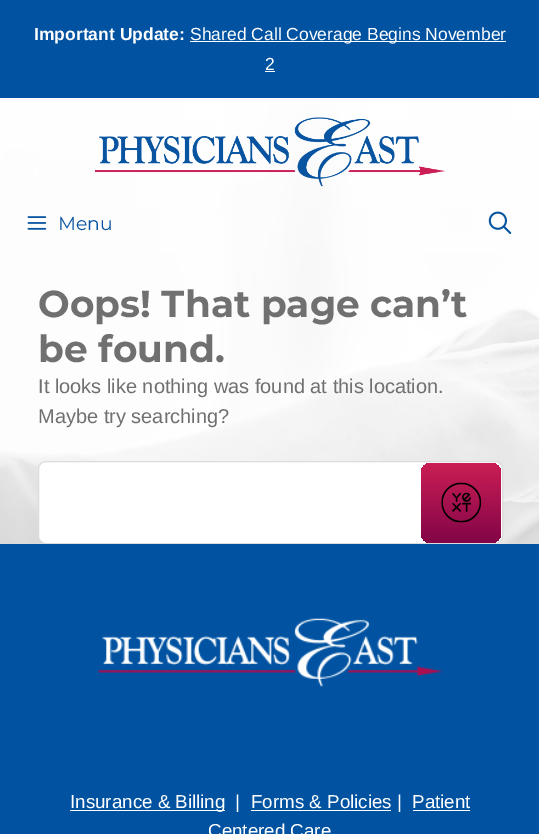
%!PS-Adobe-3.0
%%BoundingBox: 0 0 539 834
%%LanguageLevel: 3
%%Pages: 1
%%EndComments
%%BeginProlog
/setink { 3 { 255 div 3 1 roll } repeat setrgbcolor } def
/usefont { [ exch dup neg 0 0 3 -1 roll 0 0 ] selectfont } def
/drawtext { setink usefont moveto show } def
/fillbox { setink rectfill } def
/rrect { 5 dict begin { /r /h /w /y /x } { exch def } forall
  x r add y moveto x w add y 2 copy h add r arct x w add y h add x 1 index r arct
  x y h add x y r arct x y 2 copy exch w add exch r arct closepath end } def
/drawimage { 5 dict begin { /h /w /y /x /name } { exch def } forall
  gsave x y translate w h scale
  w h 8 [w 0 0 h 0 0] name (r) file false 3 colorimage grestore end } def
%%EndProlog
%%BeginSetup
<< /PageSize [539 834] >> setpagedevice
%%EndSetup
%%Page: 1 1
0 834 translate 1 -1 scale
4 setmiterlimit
0 0 539 834 255 255 255 fillbox
(assets/img1.rgb) 0 98 539 446 drawimage
0 0 539 98 1 83 162 fillbox
(Important Update:) 34 40 /LiberationSans-Bold 17.5 255 255 255 drawtext
190 41 316 1 255 255 255 fillbox
(Shared Call Coverage Begins November) 190 40 /LiberationSans-Regular 17.5 255 255 255 drawtext
(2) 265 70 /LiberationSans-Regular 17.5 255 255 255 drawtext
265 71 10 1 255 255 255 fillbox
(assets/img2.rgb) 95 117 350 70 drawimage
(assets/img3.rgb) 27 216 20 14 drawimage
(Menu) 58 230 /Montserrat-Regular 18.75 8 84 160 drawtext
(assets/img4.rgb) 488 211 24 23 drawimage
(Oops! That page can’t) 38 317 /Montserrat-Bold 37.5 112 112 112 drawtext
(be found.) 38 362 /Montserrat-Bold 37.5 112 112 112 drawtext
(It looks like nothing was found at this location.) 38 393 /LiberationSans-Regular 20 112 112 112 drawtext
(Maybe try searching?) 38 423 /LiberationSans-Regular 20 112 112 112 drawtext
255 255 255 setink
38.5 461.5 464 82 7.5 rrect gsave fill grestore
220 220 220 setink
stroke
gsave 421 463 80 80 10 rrect clip newpath
<< /ShadingType 2 /ColorSpace /DeviceRGB /Coords [461 463 461 543] /Extend [true true] /Function << /FunctionType 2 /Domain [0 1] /C0 [0.792 0.118 0.333] /C1 [0.51 0.02 0.278] /N 1 >> >> shfill grestore
(assets/img5.rgb) 441 482 41 41 drawimage
0 544 539 290 1 83 162 fillbox
(assets/img6.rgb) 98 618 345 69 drawimage
70 810 155 1 255 255 255 fillbox
(Insurance & Billing) 70 808 /LiberationSans-Regular 18.75 255 255 255 drawtext
(|) 235 808 /LiberationSans-Regular 18.75 255 255 255 drawtext
251 810 140 1 255 255 255 fillbox
(Forms & Policies |) 251 808 /LiberationSans-Regular 18.75 255 255 255 drawtext
(Patient) 412 808 /LiberationSans-Regular 18.75 255 255 255 drawtext
413 810 57 1 255 255 255 fillbox
(Centered Care) 208 837 /LiberationSans-Regular 18.75 255 255 255 drawtext
showpage
%%EOF
